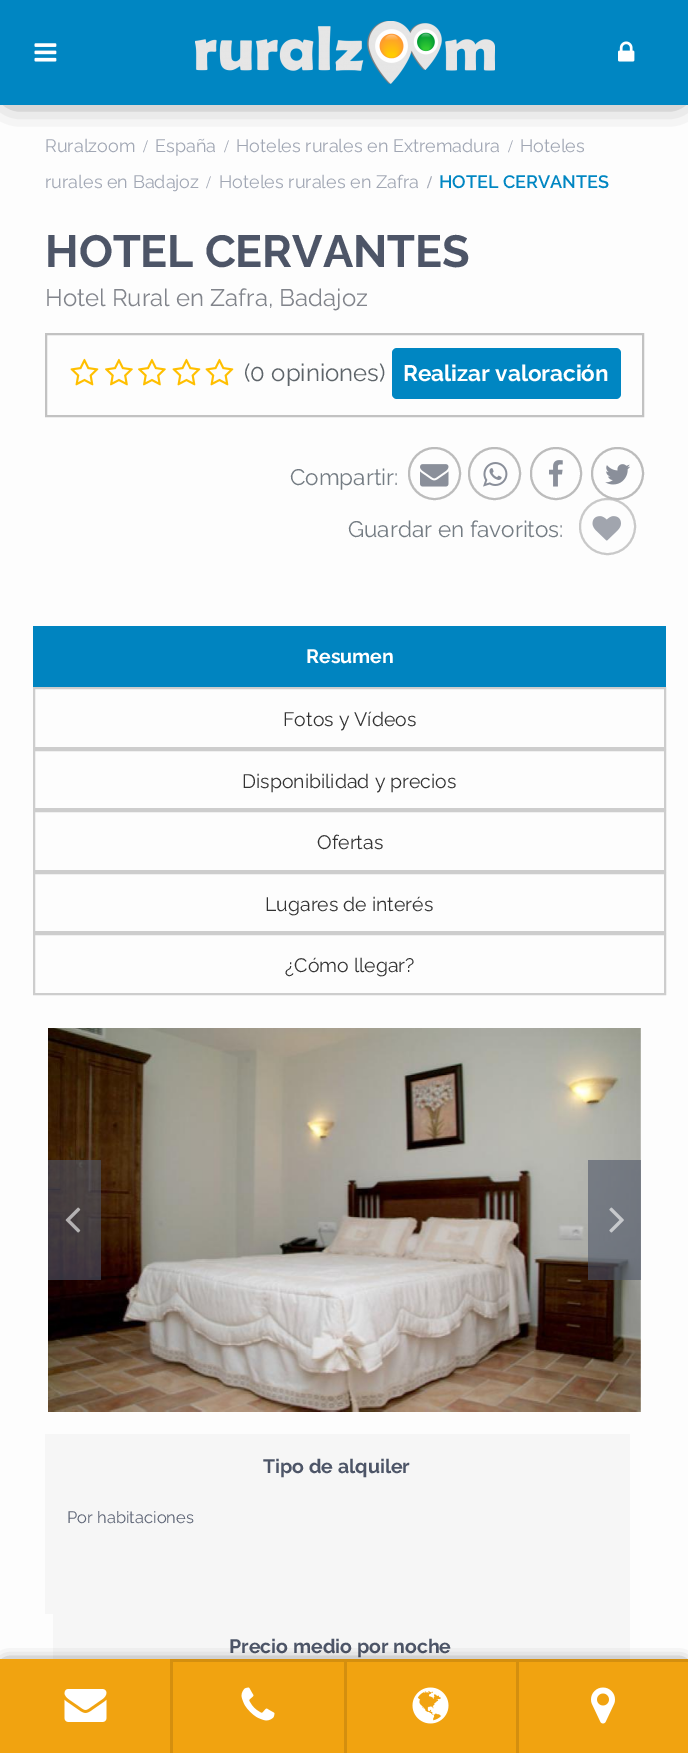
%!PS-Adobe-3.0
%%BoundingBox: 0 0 688 1753
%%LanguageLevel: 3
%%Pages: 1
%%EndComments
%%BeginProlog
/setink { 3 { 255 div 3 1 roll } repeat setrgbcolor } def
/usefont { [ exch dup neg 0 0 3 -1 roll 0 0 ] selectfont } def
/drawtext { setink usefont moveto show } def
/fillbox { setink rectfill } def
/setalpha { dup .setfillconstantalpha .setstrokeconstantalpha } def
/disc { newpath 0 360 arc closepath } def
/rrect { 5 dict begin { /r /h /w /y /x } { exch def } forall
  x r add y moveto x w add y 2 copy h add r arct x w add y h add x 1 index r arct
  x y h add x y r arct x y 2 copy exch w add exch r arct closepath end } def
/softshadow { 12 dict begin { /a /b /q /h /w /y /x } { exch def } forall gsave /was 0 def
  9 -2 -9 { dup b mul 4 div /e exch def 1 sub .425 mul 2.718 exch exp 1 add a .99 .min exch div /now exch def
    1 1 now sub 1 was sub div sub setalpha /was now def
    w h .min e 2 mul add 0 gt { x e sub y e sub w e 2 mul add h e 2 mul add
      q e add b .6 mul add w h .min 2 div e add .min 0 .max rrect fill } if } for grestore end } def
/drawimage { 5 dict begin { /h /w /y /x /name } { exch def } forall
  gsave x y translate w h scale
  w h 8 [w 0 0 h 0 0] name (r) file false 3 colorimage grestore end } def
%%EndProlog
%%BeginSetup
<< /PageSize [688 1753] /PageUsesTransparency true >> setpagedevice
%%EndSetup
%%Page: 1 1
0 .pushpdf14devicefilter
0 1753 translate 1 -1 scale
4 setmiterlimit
0 0 688 1753 253 253 253 fillbox
0 0 0 setink
12 12 665 81 0 15 1 softshadow
0 0 688 105 0 134 194 fillbox
(assets/img1.rgb) 34 43 23 19 drawimage
(assets/img2.rgb) 195 21 300 63 drawimage
(assets/img3.rgb) 618 41 17 21 drawimage
(Ruralzoom) 45 152 /Raleway-Thin 18 161 167 180 drawtext
(/) 143 152 /LiberationSerif-Regular 18 161 167 180 drawtext
(España) 155 152 /Raleway-Thin 18 161 167 180 drawtext
(/) 224 152 /LiberationSerif-Regular 18 161 167 180 drawtext
(Hoteles rurales en Extremadura) 236 152 /Raleway-Thin 18 161 167 180 drawtext
(/) 508 152 /LiberationSerif-Regular 18 161 167 180 drawtext
(Hoteles) 520 152 /Raleway-Thin 18 161 167 180 drawtext
(rurales en Badajoz) 45 188 /Raleway-Thin 18 161 167 180 drawtext
(/) 206 188 /LiberationSerif-Regular 18 161 167 180 drawtext
(Hoteles rurales en Zafra) 219 188 /Raleway-Thin 18 161 167 180 drawtext
(/) 427 188 /LiberationSerif-Bold 18 161 167 180 drawtext
(HOTEL CERVANTES) 439 188 /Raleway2-Thin 18 0 134 194 drawtext
(HOTEL CERVANTES) 45 267 /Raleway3-Thin 45 77 85 103 drawtext
(Hotel Rural en Zafra, Badajoz) 45 306 /Raleway-Thin 24 129 132 139 drawtext
194 194 194 setink
2 setlinewidth
46 334 597 82 rectstroke
(assets/img4.rgb) 70 358 29 28 drawimage
(assets/img5.rgb) 105 358 28 28 drawimage
(assets/img5.rgb) 138 358 28 28 drawimage
(assets/img4.rgb) 172 358 29 28 drawimage
(assets/img4.rgb) 205 358 29 28 drawimage
(\(0 opiniones\)) 244 381 /Raleway-Thin 24 93 100 105 drawtext
0 134 194 setink
392 348 229 51 5 rrect fill
(Realizar valoración) 403 381 /Raleway3-Thin 22.5 255 255 255 drawtext
(Compartir:) 290 485 /Raleway-Thin 22.5 116 124 131 drawtext
188 188 188 setink
434.5 473.5 25.5 disc stroke
(assets/img6.rgb) 420 464 29 23 drawimage
494.5 473.5 25.5 disc stroke
(assets/img7.rgb) 483 462 25 25 drawimage
531 448 50 51 25 rrect stroke
(assets/img8.rgb) 549 460 14 27 drawimage
617.5 473.5 25.5 disc stroke
(assets/img9.rgb) 605 464 25 21 drawimage
(Guardar en favoritos:) 348 537 /Raleway-Thin 22.5 116 124 131 drawtext
0.8 setalpha
188 188 188 setink
607.5 526.5 27.5 disc stroke
1 setalpha
(assets/img10.rgb) 592 516 29 25 drawimage
33 626 633 61 0 132 192 fillbox
(Resumen) 306 663 /Raleway3-Thin 19.5 255 255 255 drawtext
205 205 205 setink
34 688 631 60 rectstroke
(Fotos y Vídeos) 283 726 /Raleway-Thin 19.5 51 51 51 drawtext
205 205 205 setink
34 750 631 59 rectstroke
(Disponibilidad y precios) 242 788 /Raleway-Thin 19.5 51 51 51 drawtext
205 205 205 setink
34 811 631 60 rectstroke
(Ofertas) 317 849 /Raleway-Thin 19.5 51 51 51 drawtext
205 205 205 setink
34 873 631 59 rectstroke
(Lugares de interés) 265 911 /Raleway-Thin 19.5 51 51 51 drawtext
205 205 205 setink
34 934 631 60 rectstroke
(¿Cómo llegar?) 285 972 /Raleway-Thin 19.5 51 51 51 drawtext
(assets/img11.rgb) 48 1028 593 384 drawimage
0.6 setalpha
48 1160 53 120 77 85 103 fillbox
1 setalpha
(assets/img12.rgb) 65 1207 16 26 drawimage
0.6 setalpha
588 1160 53 120 77 85 103 fillbox
1 setalpha
(assets/img13.rgb) 609 1207 15 26 drawimage
45 1434 585 180 246 246 246 fillbox
(Tipo de alquiler) 263 1473 /Raleway3-Thin 19.5 77 85 103 drawtext
(Por habitaciones) 67 1523 /Raleway-Thin 16.5 93 100 117 drawtext
53 1614 577 45 246 246 246 fillbox
(Precio medio por noche) 229 1653 /Raleway3-Thin 19.5 77 85 103 drawtext
0 0 0 setink
6 1665 677 83 0 7.5 1 softshadow
0 1659 688 94 241 163 16 fillbox
170 1659 518 3 212 143 15 fillbox
170 1659 3 94 212 143 15 fillbox
(assets/img14.rgb) 241 1687 34 34 drawimage
(assets/img15.rgb) 64 1689 43 33 drawimage
344 1659 3 94 212 143 15 fillbox
(assets/img16.rgb) 412 1687 37 37 drawimage
516 1659 3 94 212 143 15 fillbox
(assets/img17.rgb) 591 1687 24 37 drawimage
.poppdf14devicefilter showpage
%%EOF
